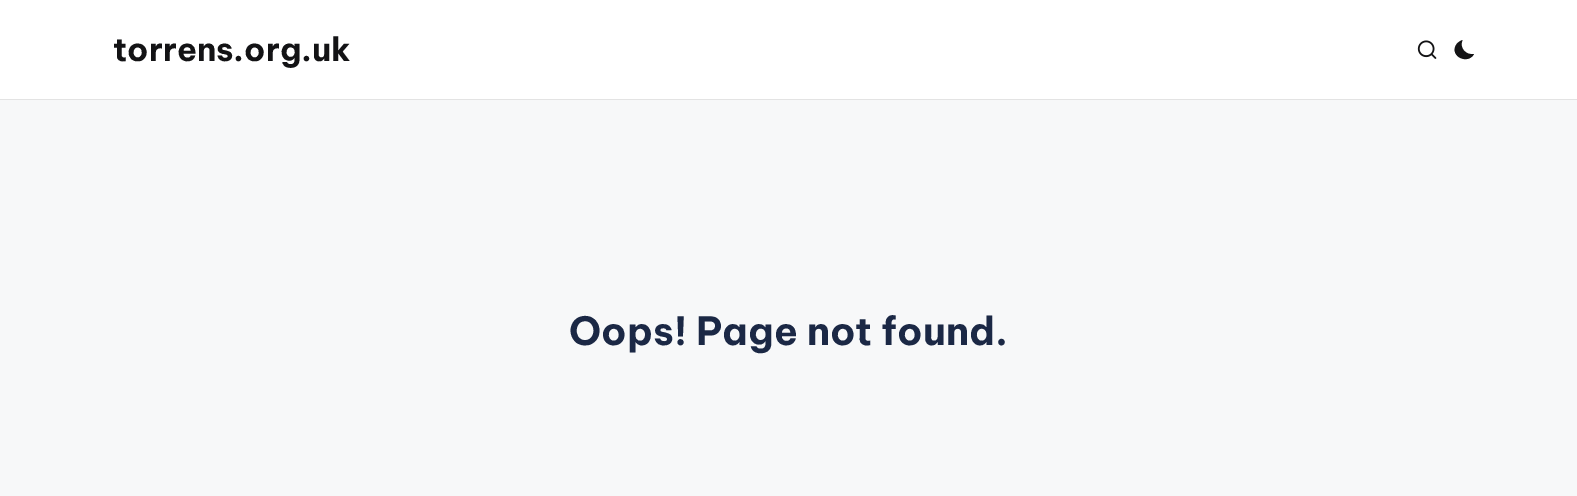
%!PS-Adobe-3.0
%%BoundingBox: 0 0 1577 496
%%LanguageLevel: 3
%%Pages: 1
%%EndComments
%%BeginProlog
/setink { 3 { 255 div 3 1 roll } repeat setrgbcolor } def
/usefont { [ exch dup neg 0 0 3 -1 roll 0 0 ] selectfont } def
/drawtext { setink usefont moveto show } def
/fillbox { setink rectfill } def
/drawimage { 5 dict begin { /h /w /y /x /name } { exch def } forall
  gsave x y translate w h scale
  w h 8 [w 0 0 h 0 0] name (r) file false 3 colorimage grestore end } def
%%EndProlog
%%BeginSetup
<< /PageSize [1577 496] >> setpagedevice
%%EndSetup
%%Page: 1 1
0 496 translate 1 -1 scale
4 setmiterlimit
0 0 1577 496 247 248 249 fillbox
0 0 1577 99 255 255 255 fillbox
0 99 1577 1 227 227 227 fillbox
(torrens.org.uk) 113 61 /BeVietnamPro-Bold 32.5 19 19 21 drawtext
(assets/img1.rgb) 1417 40 20 19 drawimage
1474 54 moveto 1466 55.5 1459 48 1462.5 40 curveto 1460 41 1457.5 42.5 1456 45 curveto 1449.5 56.5 1468 65 1474 54 curveto closepath fill
(Oops! Page not found.) 569 345 /BeVietnamPro-Bold 38.9 27 40 69 drawtext
showpage
%%EOF
